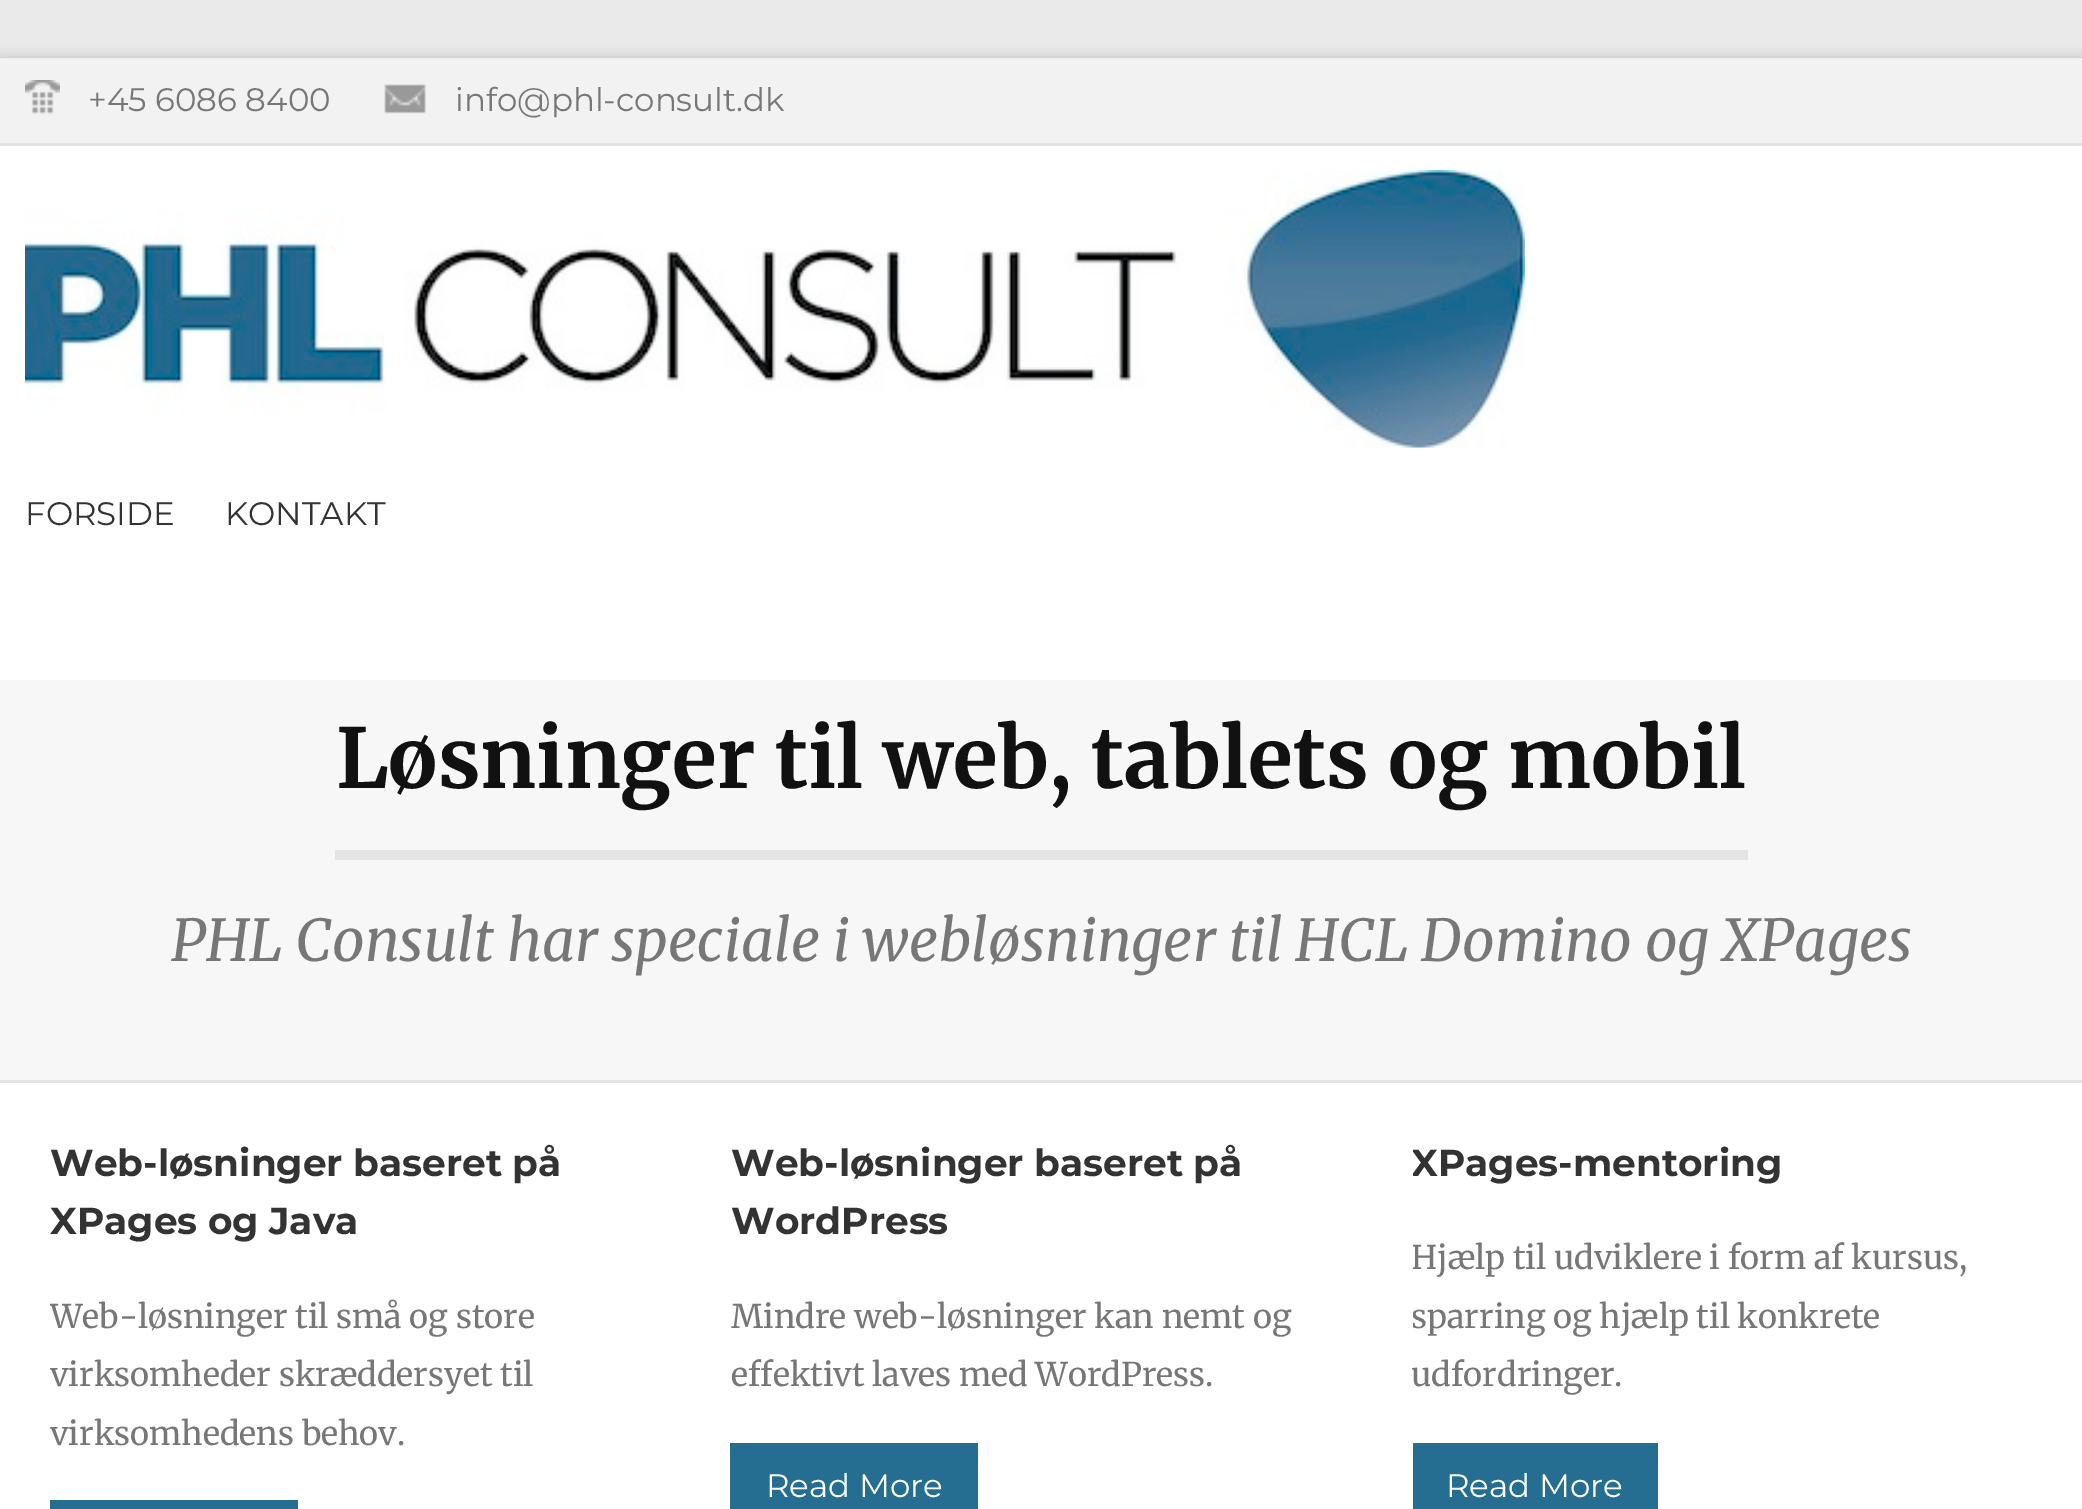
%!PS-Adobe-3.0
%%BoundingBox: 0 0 2082 1509
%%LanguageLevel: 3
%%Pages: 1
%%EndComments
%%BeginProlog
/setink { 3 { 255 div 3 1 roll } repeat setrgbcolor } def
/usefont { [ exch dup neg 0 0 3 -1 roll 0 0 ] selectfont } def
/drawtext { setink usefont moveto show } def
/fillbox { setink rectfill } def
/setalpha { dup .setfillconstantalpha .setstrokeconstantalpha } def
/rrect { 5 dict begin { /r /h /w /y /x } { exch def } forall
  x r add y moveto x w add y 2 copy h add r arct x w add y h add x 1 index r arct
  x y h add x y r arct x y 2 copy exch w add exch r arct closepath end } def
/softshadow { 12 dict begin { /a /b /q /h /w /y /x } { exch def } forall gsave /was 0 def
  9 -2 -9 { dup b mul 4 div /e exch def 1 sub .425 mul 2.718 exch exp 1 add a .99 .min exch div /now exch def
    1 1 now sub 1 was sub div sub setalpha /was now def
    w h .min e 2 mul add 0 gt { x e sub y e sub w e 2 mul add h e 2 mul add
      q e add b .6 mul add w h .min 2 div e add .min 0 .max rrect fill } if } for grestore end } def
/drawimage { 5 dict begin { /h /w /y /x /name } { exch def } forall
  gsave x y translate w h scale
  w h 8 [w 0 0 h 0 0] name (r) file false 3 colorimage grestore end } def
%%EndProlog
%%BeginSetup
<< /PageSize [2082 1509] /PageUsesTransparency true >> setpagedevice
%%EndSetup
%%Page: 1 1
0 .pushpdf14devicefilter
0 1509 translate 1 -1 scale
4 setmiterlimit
0 0 2082 1509 234 234 234 fillbox
0 0 0 setink
0 58 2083 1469 0 6 0.2 softshadow
0 1083 2082 426 255 255 255 fillbox
0 146 2082 534 255 255 255 fillbox
0 58 2082 85 242 242 242 fillbox
0 143 2082 3 228 228 228 fillbox
(assets/img1.rgb) 25 80 35 35 drawimage
(+45 6086 8400) 88 111 /Montserrat-Regular 32.5 119 119 119 drawtext
(assets/img2.rgb) 384 84 42 30 drawimage
(info@phl-consult.dk) 455 111 /Montserrat-Regular 32.5 119 119 119 drawtext
(assets/img3.rgb) 25 170 1500 278 drawimage
(FORSIDE) 25 525 /Montserrat-Regular 32.5 51 51 51 drawtext
(KONTAKT) 225 525 /Montserrat-Regular 32.5 51 51 51 drawtext
0 680 2082 400 247 247 247 fillbox
0 1080 2082 3 228 228 228 fillbox
335 850 1413 10 228 228 228 fillbox
(Løsninger til web, tablets og mobil) 336 788 /Merriweather-Bold 82.5 17 17 17 drawtext
(PHL Consult har speciale i webløsninger til HCL Domino og XPages) 171 961 /Merriweather-Italic 57.5 119 119 119 drawtext
(Web-løsninger baseret på) 50 1176 /Montserrat-Bold 37.5 51 51 51 drawtext
(XPages og Java) 50 1234 /Montserrat-Bold 37.5 51 51 51 drawtext
gsave
50 1133 620 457 rectclip
(Web-løsninger til små og store) 50 1328 /Merriweather-Regular 32.5 119 119 119 drawtext
grestore
(virksomheder skræddersyet til) 50 1386 /Merriweather-Regular 32.5 119 119 119 drawtext
(virksomhedens behov.) 50 1445 /Merriweather-Regular 32.5 119 119 119 drawtext
50 1500 248 9 37 110 145 fillbox
(Web-løsninger baseret på) 731 1176 /Montserrat-Bold 37.5 51 51 51 drawtext
(WordPress) 731 1234 /Montserrat-Bold 37.5 51 51 51 drawtext
(Mindre web-løsninger kan nemt og) 731 1328 /Merriweather-Regular 32.5 119 119 119 drawtext
(effektivt laves med WordPress.) 731 1386 /Merriweather-Regular 32.5 119 119 119 drawtext
730 1443 248 66 37 110 145 fillbox
(Read More) 766 1497 /Montserrat-Regular 32.5 255 255 255 drawtext
gsave
1413 1133 620 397 rectclip
(XPages-mentoring) 1411 1176 /Montserrat-Bold 37.5 51 51 51 drawtext
(Hjælp til udviklere i form af kursus,) 1411 1269 /Merriweather-Regular 32.5 119 119 119 drawtext
(sparring og hjælp til konkrete) 1411 1328 /Merriweather-Regular 32.5 119 119 119 drawtext
grestore
(udfordringer.) 1411 1386 /Merriweather-Regular 32.5 119 119 119 drawtext
1413 1443 245 66 37 110 145 fillbox
(Read More) 1446 1497 /Montserrat-Regular 32.5 255 255 255 drawtext
.poppdf14devicefilter showpage
%%EOF
